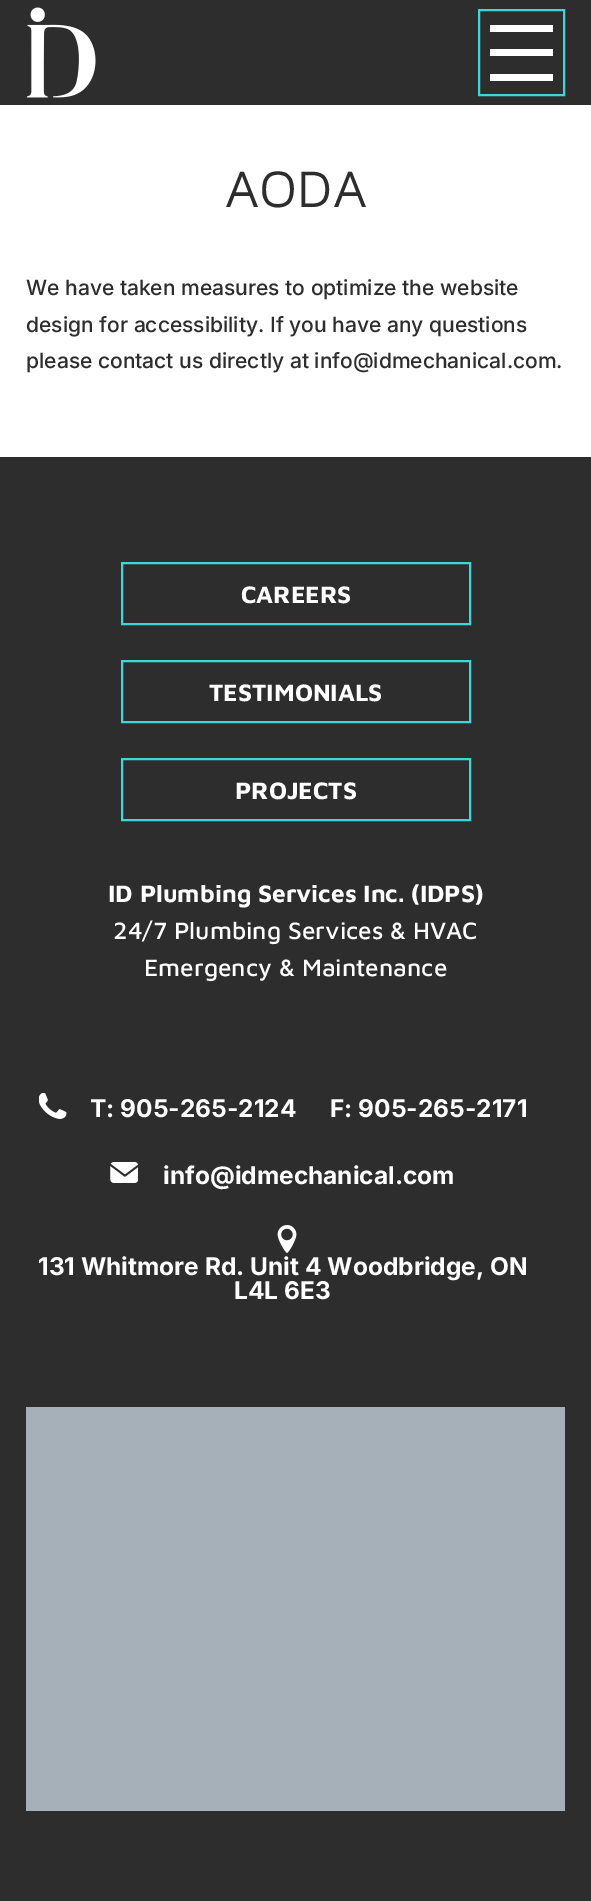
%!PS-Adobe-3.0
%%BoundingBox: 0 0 591 1901
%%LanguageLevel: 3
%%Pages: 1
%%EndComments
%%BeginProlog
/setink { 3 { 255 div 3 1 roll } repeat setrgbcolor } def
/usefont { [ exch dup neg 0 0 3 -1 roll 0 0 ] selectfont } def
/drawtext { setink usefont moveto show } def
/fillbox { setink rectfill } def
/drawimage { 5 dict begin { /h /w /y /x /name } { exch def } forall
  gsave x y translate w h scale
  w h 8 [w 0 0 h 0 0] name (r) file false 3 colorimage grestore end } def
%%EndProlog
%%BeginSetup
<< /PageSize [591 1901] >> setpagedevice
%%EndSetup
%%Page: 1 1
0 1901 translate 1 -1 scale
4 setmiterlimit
0 0 591 1901 255 255 255 fillbox
0 0 591 105 45 45 45 fillbox
(assets/img1.rgb) 27 7 69 91 drawimage
61 214 218 setink
2 setlinewidth
479 10 85 85 rectstroke
490 49 63 7 255 255 255 fillbox
490 25 63 7 255 255 255 fillbox
490 74 63 7 255 255 255 fillbox
(AODA) 225 207 /MavenPro-Regular 53 45 45 45 drawtext
(We have taken measures to optimize the website) 26 295 /Inter-Medium 21 45 45 45 drawtext
(design for accessibility. If you have any questions) 26 332 /Inter-Medium 21 45 45 45 drawtext
(please contact us directly at info@idmechanical.com.) 26 368 /Inter-Medium 21 45 45 45 drawtext
0 457 591 1444 45 45 45 fillbox
61 214 218 setink
122 563 348 61 rectstroke
(CAREERS) 241 603 /MavenPro-Bold 24.5 255 255 255 drawtext
61 214 218 setink
122 661 348 61 rectstroke
(TESTIMONIALS) 209 701 /MavenPro-Bold 24.5 255 255 255 drawtext
61 214 218 setink
122 759 348 61 rectstroke
(PROJECTS) 235 799 /MavenPro-Bold 24.5 255 255 255 drawtext
(ID Plumbing Services Inc. \(IDPS\)) 108 902 /MavenPro-Bold 24.5 255 255 255 drawtext
(24/7 Plumbing Services & HVAC) 113 939 /MavenPro-Medium 24.5 255 255 255 drawtext
(Emergency & Maintenance) 144 976 /MavenPro-Medium 24.5 255 255 255 drawtext
(assets/img2.rgb) 39 1093 28 26 drawimage
(T: 905-265-2124) 90 1117 /Inter-Bold 24.5 255 255 255 drawtext
(F: 905-265-2171) 330 1117 /Inter-Bold 24.5 255 255 255 drawtext
(assets/img3.rgb) 110 1162 28 21 drawimage
(info@idmechanical.com) 163 1184 /Inter-Bold 24.5 255 255 255 drawtext
(assets/img4.rgb) 277 1225 20 28 drawimage
(131 Whitmore Rd. Unit 4 Woodbridge, ON) 38 1275 /Inter-Bold 24.5 255 255 255 drawtext
(L4L 6E3) 234 1299 /Inter-Bold 24.5 255 255 255 drawtext
26 1407 539 404 165 176 184 fillbox
showpage
%%EOF
